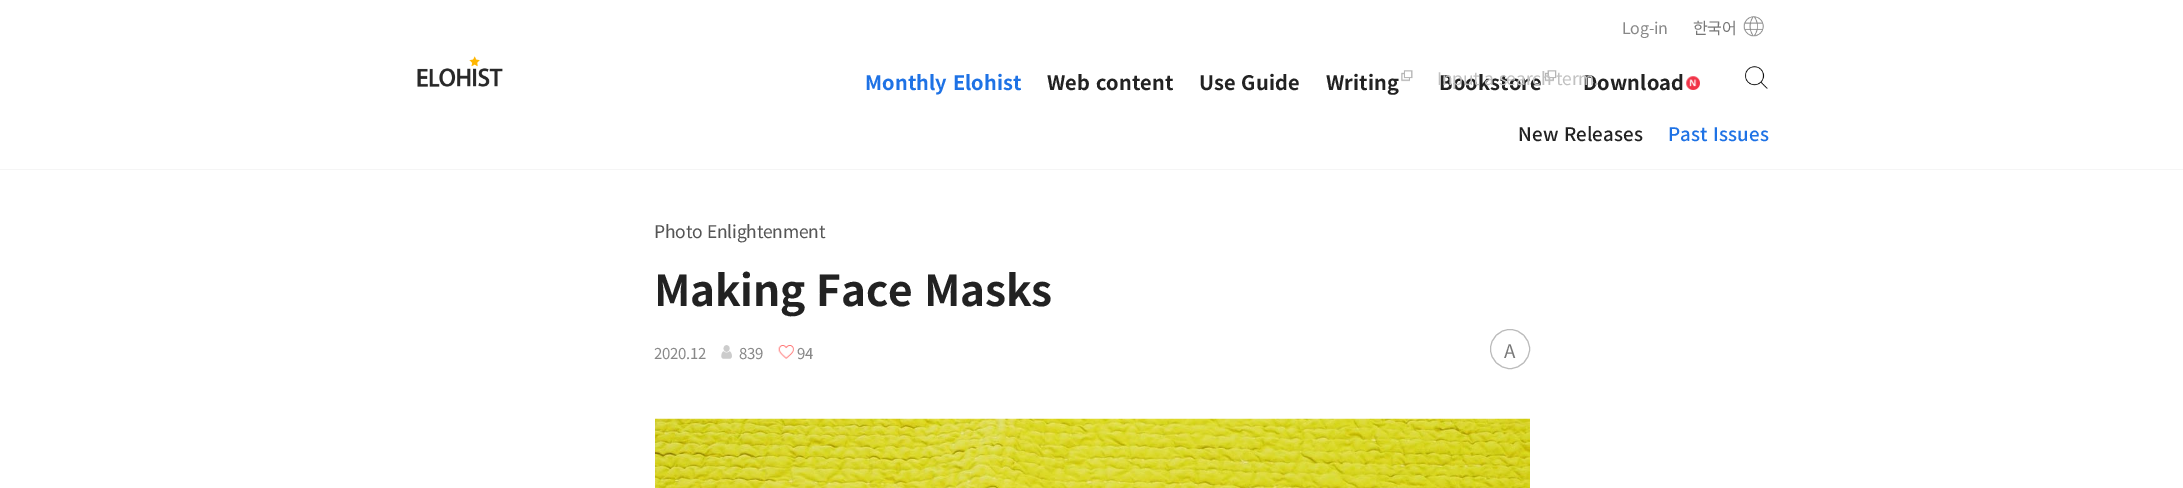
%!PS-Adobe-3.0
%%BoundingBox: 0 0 2183 488
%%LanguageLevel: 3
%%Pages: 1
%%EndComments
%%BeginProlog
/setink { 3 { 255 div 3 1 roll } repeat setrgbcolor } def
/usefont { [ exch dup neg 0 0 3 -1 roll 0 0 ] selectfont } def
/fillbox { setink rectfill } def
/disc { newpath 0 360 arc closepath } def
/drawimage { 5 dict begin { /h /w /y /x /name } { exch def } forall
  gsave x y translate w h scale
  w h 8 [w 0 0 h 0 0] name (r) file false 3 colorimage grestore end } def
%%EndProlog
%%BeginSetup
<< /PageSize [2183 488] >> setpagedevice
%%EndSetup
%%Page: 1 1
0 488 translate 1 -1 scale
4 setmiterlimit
0 0 2183 488 255 255 255 fillbox
/NotoSansKR-Regular 16 usefont
136 136 136 setink
1622 34 moveto -0.25 0 (Log-in) ashow
(assets/img1.rgb) 1743 16 21 21 drawimage
119 119 119 setink
1693 34 moveto -0.25 0 (한국어) ashow
(assets/img2.rgb) 417 56 86 31 drawimage
(assets/img5.rgb) 1545 70 12 12 drawimage
/NotoSansKR-Bold 20 usefont
34 34 34 setink
1439 90 moveto 0.1 0 (Bookstore) ashow
1583 90 moveto 0.1 0 (Download) ashow
/NotoSansKR-Regular 17.5 usefont
193 193 193 setink
1437 85 moveto 1 0 32 -0.25 0 (Input a search term.) awidthshow
(assets/img3.rgb) 1745 66 23 23 drawimage
/NotoSansKR-Bold 20 usefont
30 114 229 setink
865 90 moveto 1 0 32 0.1 0 (Monthly Elohist) awidthshow
34 34 34 setink
1047 90 moveto 1 0 32 0.1 0 (Web content) awidthshow
1199 90 moveto 1 0 32 0.1 0 (Use Guide) awidthshow
(assets/img4.rgb) 1401 70 12 12 drawimage
1326 90 moveto 0.1 0 (Writing) ashow
(assets/img6.rgb) 1686 76 14 14 drawimage
/NotoSansKR-Medium 18.75 usefont
1518 141 moveto 1 0 32 0.1 0 (New Releases) awidthshow
30 114 229 setink
1668 141 moveto 1 0 32 0.1 0 (Past Issues) awidthshow
0 169 2183 1 245 245 245 fillbox
/NotoSansKR-Regular 17.5 usefont
85 85 85 setink
654 238 moveto 1 0 32 -0.25 0 (Photo Enlightenment) awidthshow
/NotoSansKR-Bold 42.5 usefont
34 34 34 setink
654 306 moveto 2 0 32 -0.25 0 (Making Face Masks) awidthshow
/NotoSansKR-Regular 15 usefont
136 136 136 setink
654 359 moveto -0.25 0 (2020.12) ashow
(assets/img7.rgb) 721 345 11 14 drawimage
739 359 moveto -0.25 0 (839) ashow
(assets/img8.rgb) 778 345 16 14 drawimage
797 359 moveto -0.25 0 (94) ashow
187 187 187 setink
1510 349 19.5 disc stroke
/NotoSansKR-Regular 18.75 usefont
119 119 119 setink
1504 358 moveto -0.25 0 (A) ashow
(assets/img9.rgb) 655 418 875 70 drawimage
showpage
%%EOF
